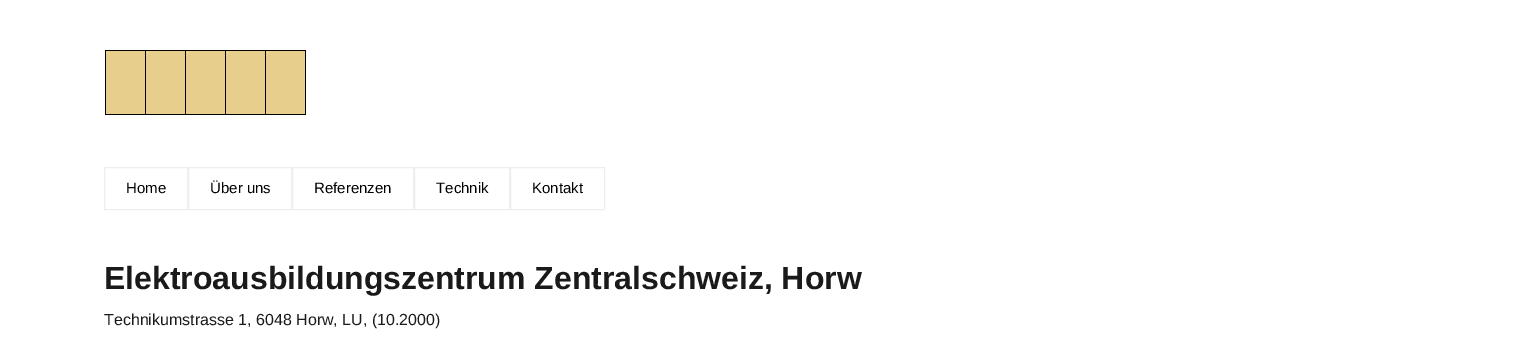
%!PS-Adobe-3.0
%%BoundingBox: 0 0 1527 364
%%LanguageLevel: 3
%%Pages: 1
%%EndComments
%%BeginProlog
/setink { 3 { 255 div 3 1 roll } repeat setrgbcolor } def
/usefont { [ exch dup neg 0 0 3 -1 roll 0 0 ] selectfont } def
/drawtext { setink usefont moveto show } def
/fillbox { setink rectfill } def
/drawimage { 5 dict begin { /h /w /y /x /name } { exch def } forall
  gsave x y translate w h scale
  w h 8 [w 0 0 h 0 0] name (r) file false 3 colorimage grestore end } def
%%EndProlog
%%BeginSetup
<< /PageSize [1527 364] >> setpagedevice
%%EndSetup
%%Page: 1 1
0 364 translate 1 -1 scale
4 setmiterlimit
0 0 1527 364 255 255 255 fillbox
(assets/img1.rgb) 105 50 201 65 drawimage
238 238 238 setink
104.5 167.5 83 42 rectstroke
(Home) 126 193 /LiberationSans-Regular 15 0 0 0 drawtext
238 238 238 setink
188.5 167.5 103 42 rectstroke
(Über uns) 210 193 /LiberationSans-Regular 15 0 0 0 drawtext
238 238 238 setink
292.5 167.5 121 42 rectstroke
(Referenzen) 314 193 /LiberationSans-Regular 15 0 0 0 drawtext
238 238 238 setink
414.5 167.5 95 42 rectstroke
(Technik) 436 193 /LiberationSans-Regular 15 0 0 0 drawtext
238 238 238 setink
510.5 167.5 94 42 rectstroke
(Kontakt) 532 193 /LiberationSans-Regular 15 0 0 0 drawtext
(Elektroausbildungszentrum Zentralschweiz, Horw) 104 289 /LiberationSans-Bold 32 26 26 26 drawtext
(Technikumstrasse 1, 6048 Horw, LU, \(10.2000\)) 104 325 /LiberationSans-Regular 16 26 26 26 drawtext
showpage
%%EOF
